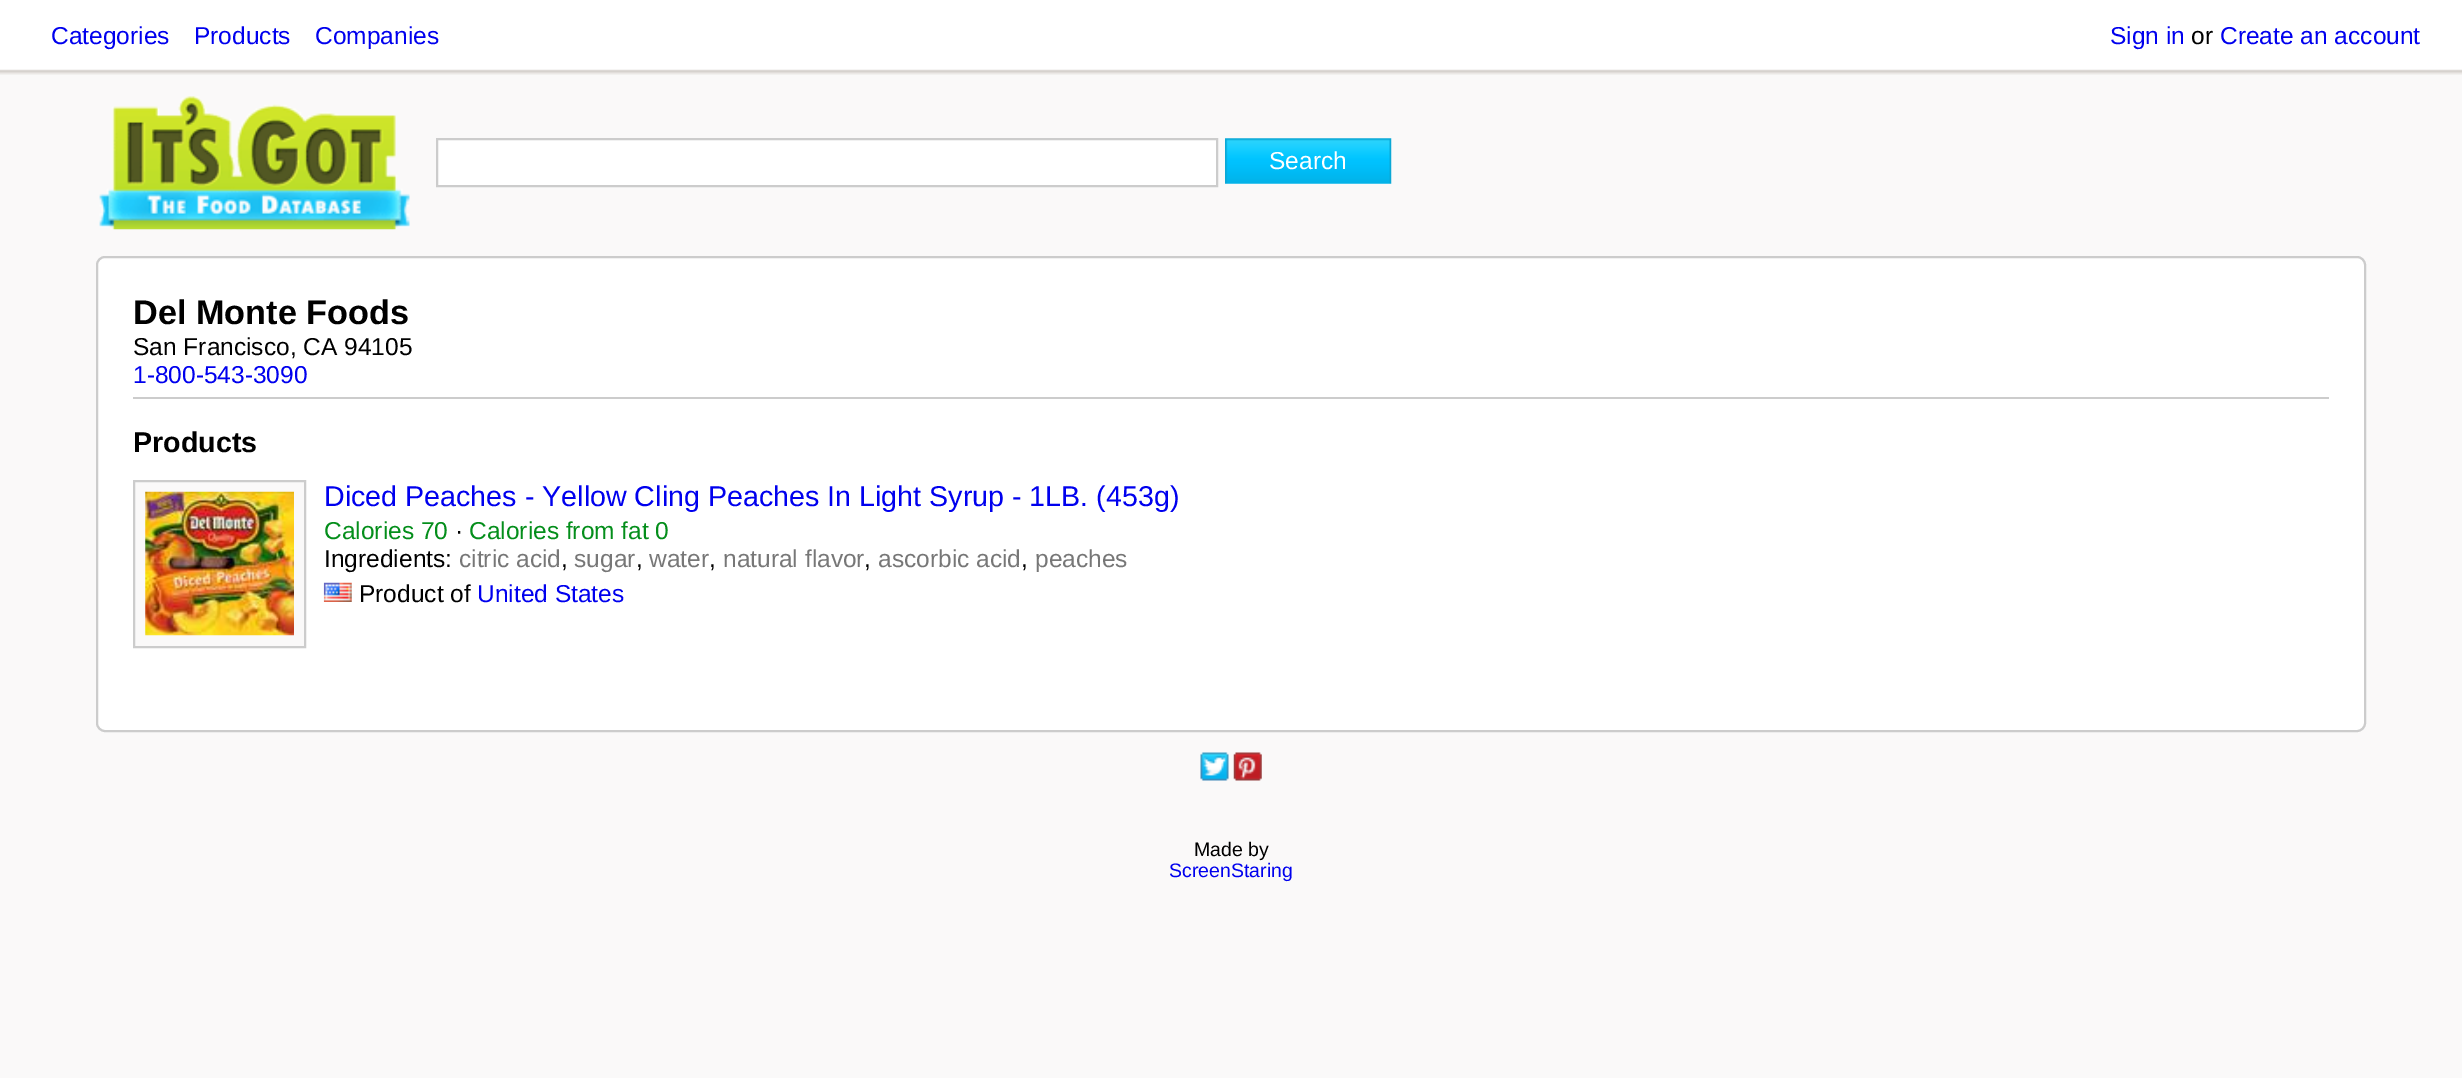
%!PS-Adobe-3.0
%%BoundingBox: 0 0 2462 1078
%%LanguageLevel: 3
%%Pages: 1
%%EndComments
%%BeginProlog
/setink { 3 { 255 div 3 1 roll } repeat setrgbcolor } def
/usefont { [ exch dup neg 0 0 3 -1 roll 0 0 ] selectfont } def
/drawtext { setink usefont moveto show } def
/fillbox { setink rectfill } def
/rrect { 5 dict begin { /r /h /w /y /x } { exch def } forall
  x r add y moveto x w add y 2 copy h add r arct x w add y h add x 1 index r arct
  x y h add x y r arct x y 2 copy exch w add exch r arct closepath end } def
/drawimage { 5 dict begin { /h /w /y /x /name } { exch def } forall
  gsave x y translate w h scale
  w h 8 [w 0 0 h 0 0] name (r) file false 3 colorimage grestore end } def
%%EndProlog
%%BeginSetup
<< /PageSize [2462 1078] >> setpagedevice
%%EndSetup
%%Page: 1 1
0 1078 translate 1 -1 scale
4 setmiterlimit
0 0 2462 1078 250 249 249 fillbox
0 0 2462 69 255 255 255 fillbox
(assets/img1.rgb) 0 69 2462 6 drawimage
(Categories) 51 44 /LiberationSans-Regular 24.5 0 0 238 drawtext
(Products) 194 44 /LiberationSans-Regular 24.5 0 0 238 drawtext
(Companies) 315 44 /LiberationSans-Regular 24.5 0 0 238 drawtext
(Sign in) 2110 44 /LiberationSans-Regular 24.5 0 0 238 drawtext
(or) 2191 44 /LiberationSans-Regular 24.5 0 0 0 drawtext
(Create an account) 2220 44 /LiberationSans-Regular 24.5 0 0 238 drawtext
(assets/img2.rgb) 99 96 311 134 drawimage
255 255 255 setink
437 139 moveto 1217 139 lineto 1217 186 lineto 437 186 lineto closepath gsave fill grestore
204 204 204 setink
2 setlinewidth
stroke
(assets/img3.rgb) 1225 138 167 46 drawimage
(Search) 1269 169 /LiberationSans-Regular 24.5 255 255 255 drawtext
97 257 2268 474 8 rrect gsave fill grestore
204 204 204 setink
stroke
133 397 2196 2 204 204 204 fillbox
(Del Monte Foods) 133 324 /LiberationSans-Bold 34.25 0 0 0 drawtext
(San Francisco, CA 94105) 133 355 /LiberationSans-Regular 24.5 0 0 0 drawtext
(1-800-543-3090) 133 383 /LiberationSans-Regular 24.5 0 0 238 drawtext
(Products) 133 452 /LiberationSans-Bold 28.65 0 0 0 drawtext
250 249 249 setink
134 481 moveto 305 481 lineto 305 647 lineto 134 647 lineto closepath gsave fill grestore
204 204 204 setink
stroke
(assets/img4.rgb) 145 491 149 145 drawimage
(Diced Peaches - Yellow Cling Peaches In Light Syrup - 1LB. \(453g\)) 324 506 /LiberationSans-Regular 28.65 0 0 238 drawtext
(Calories 70) 324 539 /LiberationSans-Regular 24.5 4 142 27 drawtext
(·) 455 539 /LiberationSans-Regular 24.5 0 0 0 drawtext
(Calories from fat 0) 469 539 /LiberationSans-Regular 24.5 4 142 27 drawtext
(Ingredients:) 324 567 /LiberationSans-Regular 24.5 0 0 0 drawtext
(citric acid) 459 567 /LiberationSans-Regular 24.5 119 119 119 drawtext
(,) 561 567 /LiberationSans-Regular 24.5 0 0 0 drawtext
(sugar) 574 567 /LiberationSans-Regular 24.5 119 119 119 drawtext
(,) 636 567 /LiberationSans-Regular 24.5 0 0 0 drawtext
(water) 649 567 /LiberationSans-Regular 24.5 119 119 119 drawtext
(,) 709 567 /LiberationSans-Regular 24.5 0 0 0 drawtext
(natural flavor) 723 567 /LiberationSans-Regular 24.5 119 119 119 drawtext
(,) 864 567 /LiberationSans-Regular 24.5 0 0 0 drawtext
(ascorbic acid) 878 567 /LiberationSans-Regular 24.5 119 119 119 drawtext
(,) 1021 567 /LiberationSans-Regular 24.5 0 0 0 drawtext
(peaches) 1035 567 /LiberationSans-Regular 24.5 119 119 119 drawtext
(assets/img5.rgb) 323 582 29 20 drawimage
(Product of) 359 602 /LiberationSans-Regular 24.5 0 0 0 drawtext
(United States) 477 602 /LiberationSans-Regular 24.5 0 0 238 drawtext
(assets/img6.rgb) 1200 752 29 29 drawimage
(assets/img7.rgb) 1233 752 29 29 drawimage
(Made by) 1194 856 /LiberationSans-Regular 19.5 0 0 0 drawtext
(ScreenStaring) 1169 877 /LiberationSans-Regular 19.5 0 0 238 drawtext
showpage
%%EOF
